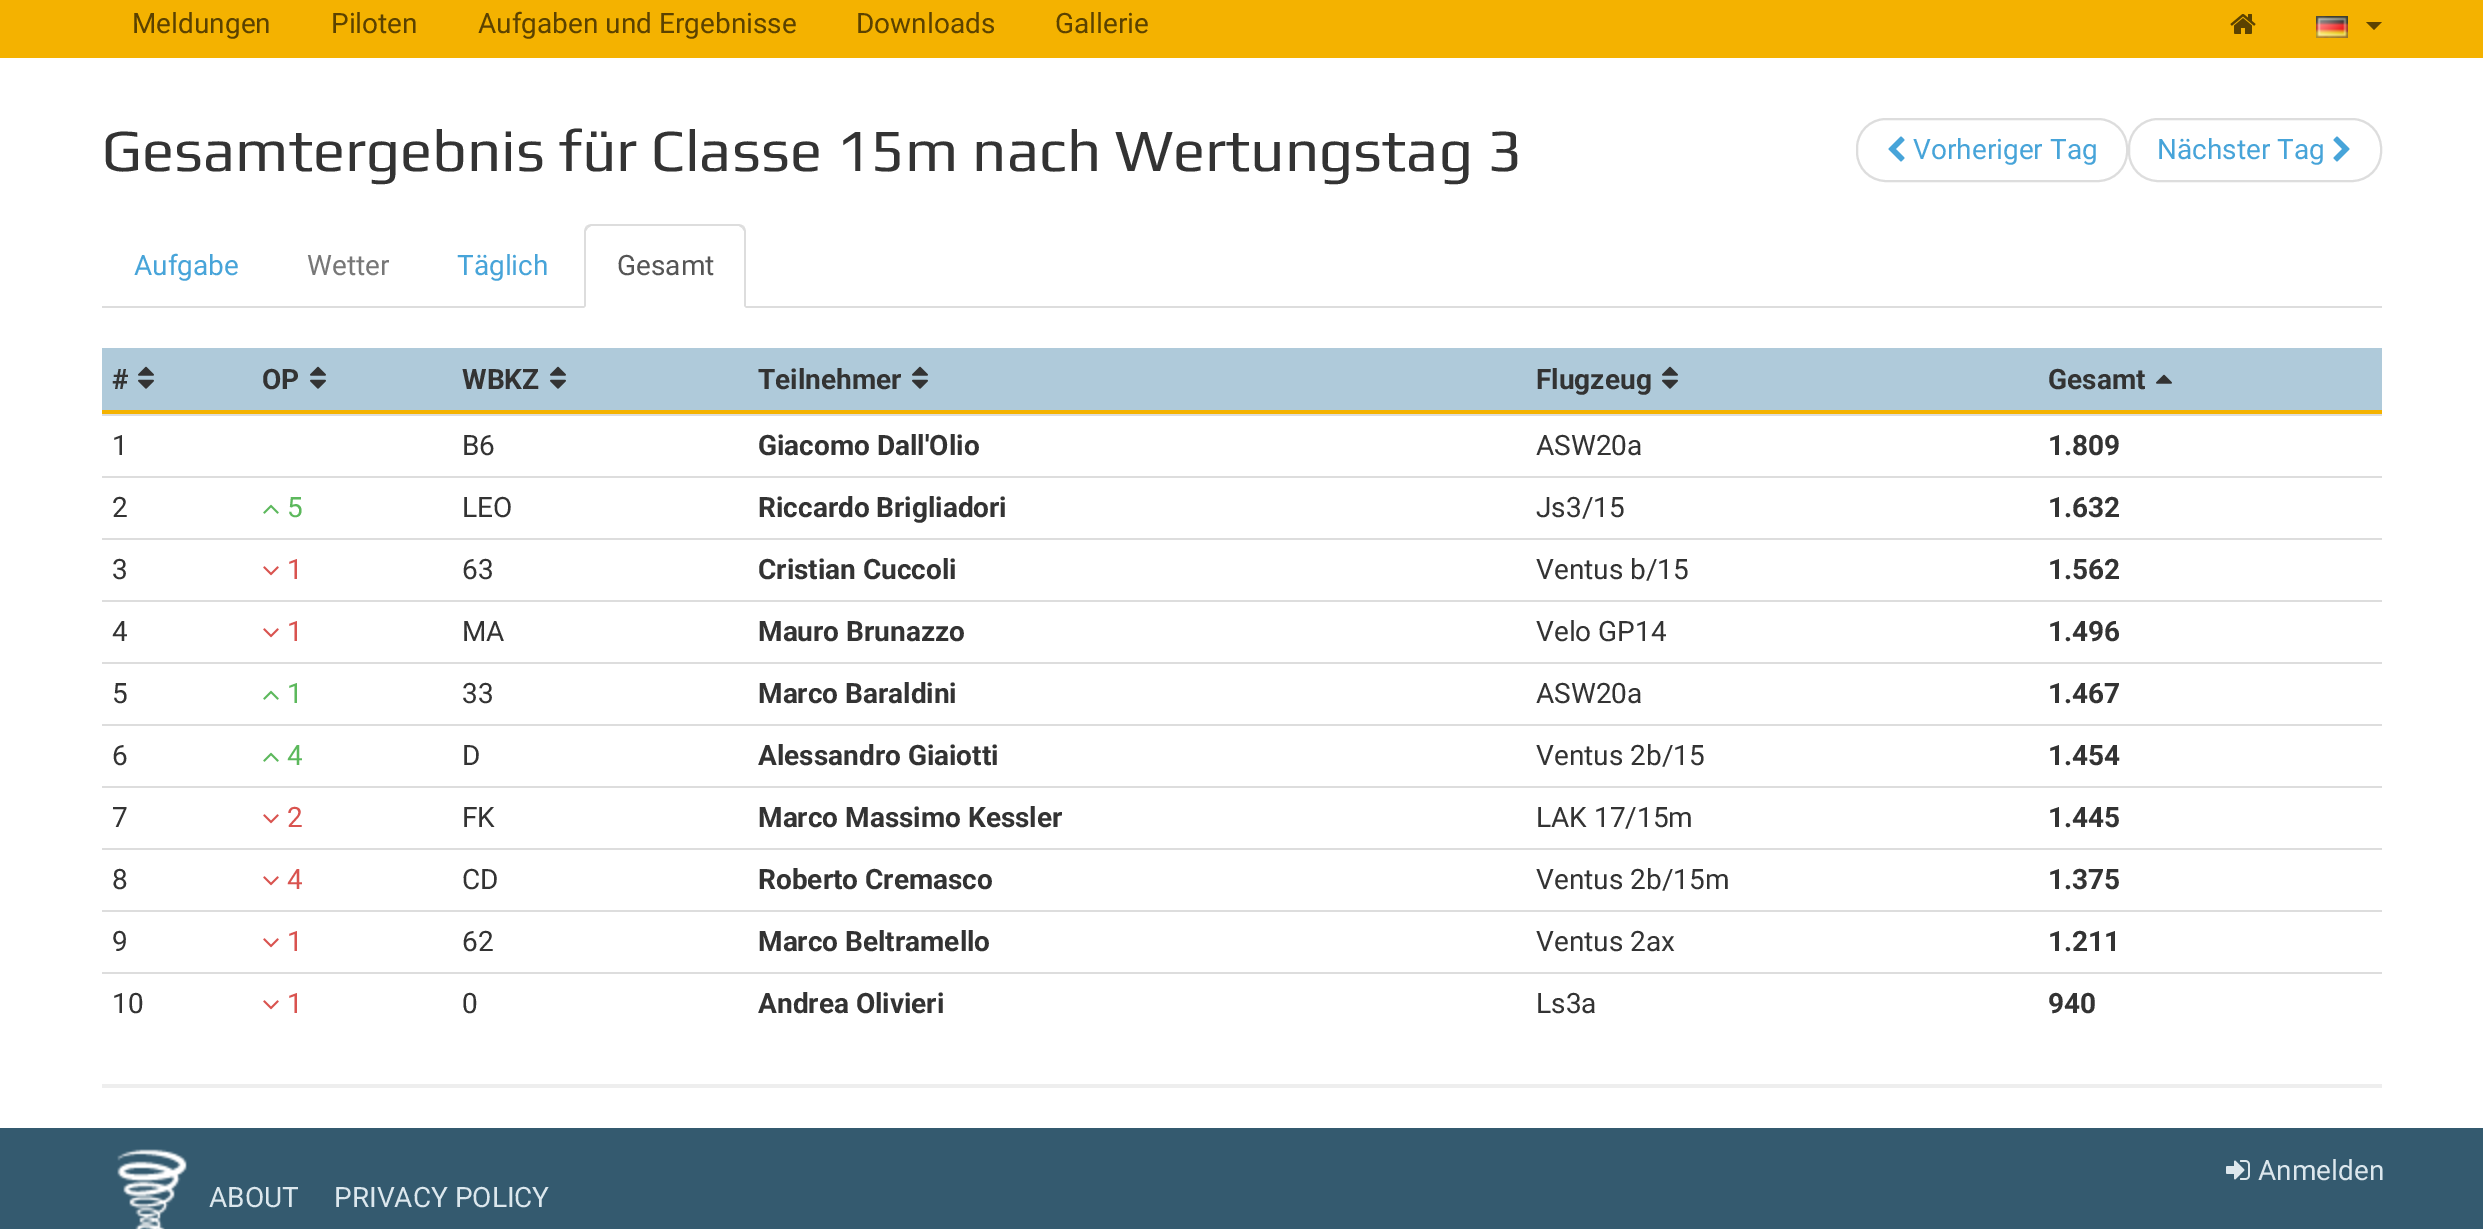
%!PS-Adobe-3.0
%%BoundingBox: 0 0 2483 1229
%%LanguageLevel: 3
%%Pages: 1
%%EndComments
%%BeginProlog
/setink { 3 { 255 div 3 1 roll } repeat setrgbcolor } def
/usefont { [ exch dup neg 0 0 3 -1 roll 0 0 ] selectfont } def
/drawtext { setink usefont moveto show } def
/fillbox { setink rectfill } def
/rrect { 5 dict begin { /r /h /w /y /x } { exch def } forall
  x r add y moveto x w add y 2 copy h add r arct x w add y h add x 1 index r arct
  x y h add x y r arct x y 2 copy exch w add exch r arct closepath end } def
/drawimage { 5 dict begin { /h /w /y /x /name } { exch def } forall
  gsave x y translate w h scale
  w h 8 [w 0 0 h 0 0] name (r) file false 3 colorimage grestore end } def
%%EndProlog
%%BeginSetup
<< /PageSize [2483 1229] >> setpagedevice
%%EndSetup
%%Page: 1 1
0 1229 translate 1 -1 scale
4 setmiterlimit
0 0 2483 1229 255 255 255 fillbox
0 0 2483 58 244 178 0 fillbox
(Meldungen) 132 33 /Roboto-Regular 28 91 66 0 drawtext
(Piloten) 331 33 /Roboto-Regular 28 91 66 0 drawtext
(Aufgaben und Ergebnisse) 478 33 /Roboto-Regular 28 91 66 0 drawtext
(Downloads) 856 33 /Roboto-Regular 28 91 66 0 drawtext
(Gallerie) 1055 33 /Roboto-Regular 28 91 66 0 drawtext
(assets/img1.rgb) 2230 14 26 20 drawimage
(assets/img2.rgb) 2316 16 32 22 drawimage
2366 22 moveto 2382 22 lineto 2374 30 lineto closepath fill
(Gesamtergebnis für Classe 15m nach Wertungstag 3) 102 171 /Play-Regular 60 51 51 51 drawtext
221 221 221 setink
2 setlinewidth
1857 119 270 62 29 rrect stroke
(assets/img3.rgb) 1888 136 17 26 drawimage
(Vorheriger Tag) 1913 159 /Roboto-Regular 28 71 164 217 drawtext
221 221 221 setink
2129 119 252 62 29 rrect stroke
(Nächster Tag) 2157 159 /Roboto-Regular 28 71 164 217 drawtext
(assets/img4.rgb) 2333 136 17 26 drawimage
102 306 2280 2 221 221 221 fillbox
(Aufgabe) 134 275 /Roboto-Regular 28 71 164 217 drawtext
(Wetter) 307 275 /Roboto-Regular 28 119 119 119 drawtext
(Täglich) 457 275 /Roboto-Regular 28 71 164 217 drawtext
255 255 255 setink
592 224 moveto 738 224 lineto 742.5 224 746 227.5 746 232 curveto 746 308 lineto 584 308 lineto 584 232 lineto 584 227.5 587.5 224 592 224 curveto closepath fill
221 221 221 setink
592 224 moveto 590 224 588 225 586 226 curveto 588 228 lineto 591 226 lineto 739 226 lineto 742 228 lineto 744 226 lineto 742 225 740 224 738 224 curveto closepath fill
746 308 moveto 746 232 lineto 746 230 745 228 744 226 curveto 742 228 lineto 744 231 lineto 744 306 lineto closepath fill
584 308 moveto 586 306 lineto 586 231 lineto 588 228 lineto 586 226 lineto 585 228 584 230 584 232 curveto closepath fill
(Gesamt) 617 275 /Roboto-Regular 28 85 85 85 drawtext
102 348 2280 62 175 202 218 fillbox
102 410 2280 4 244 178 0 fillbox
(#) 112 389 /Roboto-Bold 28 51 51 51 drawtext
(assets/img5.rgb) 138 366 16 23 drawimage
(OP) 262 389 /Roboto-Bold 28 51 51 51 drawtext
(assets/img5.rgb) 310 366 16 23 drawimage
(WBKZ) 462 389 /Roboto-Bold 28 51 51 51 drawtext
(assets/img5.rgb) 550 366 16 23 drawimage
(Teilnehmer) 758 389 /Roboto-Bold 28 51 51 51 drawtext
(assets/img5.rgb) 912 366 16 23 drawimage
(Flugzeug) 1536 389 /Roboto-Bold 28 51 51 51 drawtext
(assets/img5.rgb) 1662 366 16 23 drawimage
(Gesamt) 2048 389 /Roboto-Bold 28 51 51 51 drawtext
(assets/img6.rgb) 2156 374 16 10 drawimage
102 414 2280 2 221 221 221 fillbox
(1) 112 455 /Roboto-Regular 28 51 51 51 drawtext
(B6) 462 455 /Roboto-Regular 28 51 51 51 drawtext
(Giacomo Dall'Olio) 758 455 /Roboto-Bold 28 51 51 51 drawtext
(ASW20a) 1536 455 /Roboto-Regular 28 51 51 51 drawtext
(1.809) 2048 455 /Roboto-Bold 28 51 51 51 drawtext
102 476 2280 2 221 221 221 fillbox
(2) 112 517 /Roboto-Regular 28 51 51 51 drawtext
(assets/img7.rgb) 263 504 16 10 drawimage
(5) 287 517 /Roboto-Regular 28 92 184 92 drawtext
(LEO) 462 517 /Roboto-Regular 28 51 51 51 drawtext
(Riccardo Brigliadori) 758 517 /Roboto-Bold 28 51 51 51 drawtext
(Js3/15) 1536 517 /Roboto-Regular 28 51 51 51 drawtext
(1.632) 2048 517 /Roboto-Bold 28 51 51 51 drawtext
102 538 2280 2 221 221 221 fillbox
(3) 112 579 /Roboto-Regular 28 51 51 51 drawtext
(assets/img8.rgb) 263 566 16 10 drawimage
(1) 287 579 /Roboto-Regular 28 217 83 79 drawtext
(63) 462 579 /Roboto-Regular 28 51 51 51 drawtext
(Cristian Cuccoli) 758 579 /Roboto-Bold 28 51 51 51 drawtext
(Ventus b/15) 1536 579 /Roboto-Regular 28 51 51 51 drawtext
(1.562) 2048 579 /Roboto-Bold 28 51 51 51 drawtext
102 600 2280 2 221 221 221 fillbox
(4) 112 641 /Roboto-Regular 28 51 51 51 drawtext
(assets/img8.rgb) 263 628 16 10 drawimage
(1) 287 641 /Roboto-Regular 28 217 83 79 drawtext
(MA) 462 641 /Roboto-Regular 28 51 51 51 drawtext
(Mauro Brunazzo) 758 641 /Roboto-Bold 28 51 51 51 drawtext
(Velo GP14) 1536 641 /Roboto-Regular 28 51 51 51 drawtext
(1.496) 2048 641 /Roboto-Bold 28 51 51 51 drawtext
102 662 2280 2 221 221 221 fillbox
(5) 112 703 /Roboto-Regular 28 51 51 51 drawtext
(assets/img7.rgb) 263 690 16 10 drawimage
(1) 287 703 /Roboto-Regular 28 92 184 92 drawtext
(33) 462 703 /Roboto-Regular 28 51 51 51 drawtext
(Marco Baraldini) 758 703 /Roboto-Bold 28 51 51 51 drawtext
(ASW20a) 1536 703 /Roboto-Regular 28 51 51 51 drawtext
(1.467) 2048 703 /Roboto-Bold 28 51 51 51 drawtext
102 724 2280 2 221 221 221 fillbox
(6) 112 765 /Roboto-Regular 28 51 51 51 drawtext
(assets/img7.rgb) 263 752 16 10 drawimage
(4) 287 765 /Roboto-Regular 28 92 184 92 drawtext
(D) 462 765 /Roboto-Regular 28 51 51 51 drawtext
(Alessandro Giaiotti) 758 765 /Roboto-Bold 28 51 51 51 drawtext
(Ventus 2b/15) 1536 765 /Roboto-Regular 28 51 51 51 drawtext
(1.454) 2048 765 /Roboto-Bold 28 51 51 51 drawtext
102 786 2280 2 221 221 221 fillbox
(7) 112 827 /Roboto-Regular 28 51 51 51 drawtext
(assets/img8.rgb) 263 814 16 10 drawimage
(2) 287 827 /Roboto-Regular 28 217 83 79 drawtext
(FK) 462 827 /Roboto-Regular 28 51 51 51 drawtext
(Marco Massimo Kessler) 758 827 /Roboto-Bold 28 51 51 51 drawtext
(LAK 17/15m) 1536 827 /Roboto-Regular 28 51 51 51 drawtext
(1.445) 2048 827 /Roboto-Bold 28 51 51 51 drawtext
102 848 2280 2 221 221 221 fillbox
(8) 112 889 /Roboto-Regular 28 51 51 51 drawtext
(assets/img8.rgb) 263 876 16 10 drawimage
(4) 287 889 /Roboto-Regular 28 217 83 79 drawtext
(CD) 462 889 /Roboto-Regular 28 51 51 51 drawtext
(Roberto Cremasco) 758 889 /Roboto-Bold 28 51 51 51 drawtext
(Ventus 2b/15m) 1536 889 /Roboto-Regular 28 51 51 51 drawtext
(1.375) 2048 889 /Roboto-Bold 28 51 51 51 drawtext
102 910 2280 2 221 221 221 fillbox
(9) 112 951 /Roboto-Regular 28 51 51 51 drawtext
(assets/img8.rgb) 263 938 16 10 drawimage
(1) 287 951 /Roboto-Regular 28 217 83 79 drawtext
(62) 462 951 /Roboto-Regular 28 51 51 51 drawtext
(Marco Beltramello) 758 951 /Roboto-Bold 28 51 51 51 drawtext
(Ventus 2ax) 1536 951 /Roboto-Regular 28 51 51 51 drawtext
(1.211) 2048 951 /Roboto-Bold 28 51 51 51 drawtext
102 972 2280 2 221 221 221 fillbox
(10) 112 1013 /Roboto-Regular 28 51 51 51 drawtext
(assets/img8.rgb) 263 1000 16 10 drawimage
(1) 287 1013 /Roboto-Regular 28 217 83 79 drawtext
(0) 462 1013 /Roboto-Regular 28 51 51 51 drawtext
(Andrea Olivieri) 758 1013 /Roboto-Bold 28 51 51 51 drawtext
(Ls3a) 1536 1013 /Roboto-Regular 28 51 51 51 drawtext
(940) 2048 1013 /Roboto-Bold 28 51 51 51 drawtext
102 1084 2280 4 238 238 238 fillbox
0 1128 2483 101 52 90 111 fillbox
(assets/img9.rgb) 2226 1160 24 20 drawimage
(Anmelden) 2258 1180 /Roboto-Regular 28 220 231 237 drawtext
(assets/img10.rgb) 117 1149 70 80 drawimage
(ABOUT) 209 1207 /Roboto-Regular 28 220 231 237 drawtext
(PRIVACY POLICY) 334 1207 /Roboto-Regular 28 220 231 237 drawtext
showpage
%%EOF
